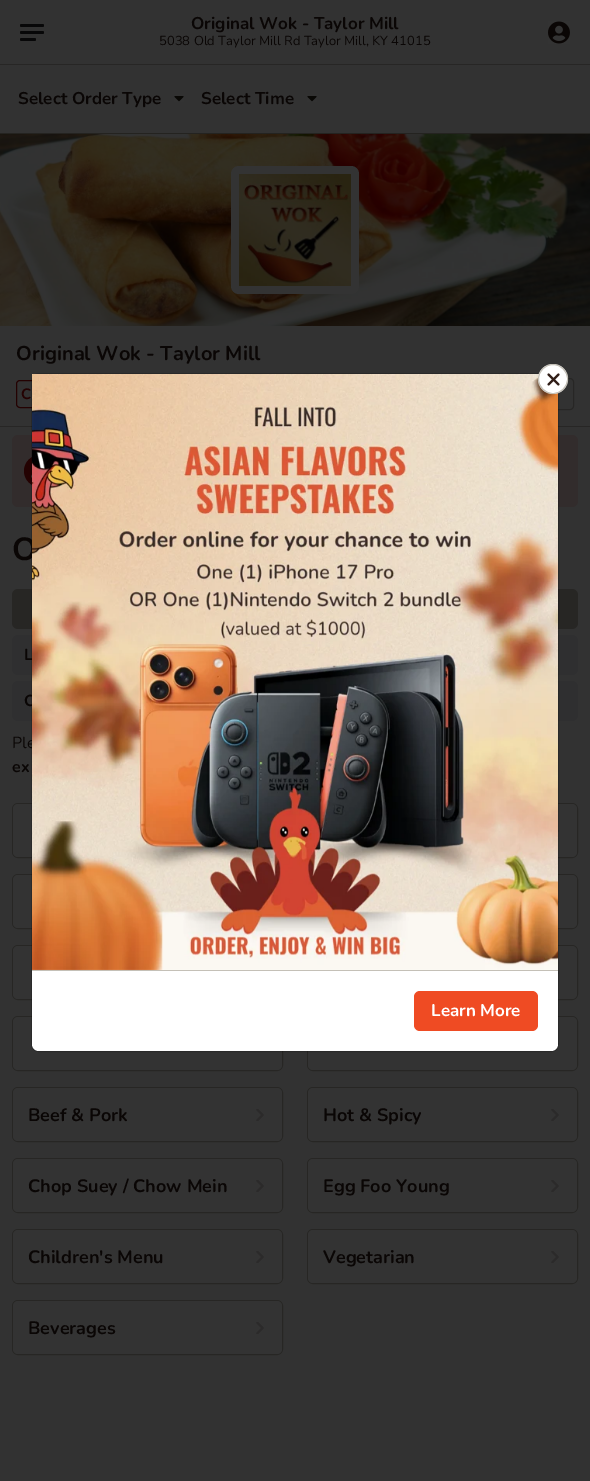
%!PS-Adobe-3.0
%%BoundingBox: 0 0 590 1481
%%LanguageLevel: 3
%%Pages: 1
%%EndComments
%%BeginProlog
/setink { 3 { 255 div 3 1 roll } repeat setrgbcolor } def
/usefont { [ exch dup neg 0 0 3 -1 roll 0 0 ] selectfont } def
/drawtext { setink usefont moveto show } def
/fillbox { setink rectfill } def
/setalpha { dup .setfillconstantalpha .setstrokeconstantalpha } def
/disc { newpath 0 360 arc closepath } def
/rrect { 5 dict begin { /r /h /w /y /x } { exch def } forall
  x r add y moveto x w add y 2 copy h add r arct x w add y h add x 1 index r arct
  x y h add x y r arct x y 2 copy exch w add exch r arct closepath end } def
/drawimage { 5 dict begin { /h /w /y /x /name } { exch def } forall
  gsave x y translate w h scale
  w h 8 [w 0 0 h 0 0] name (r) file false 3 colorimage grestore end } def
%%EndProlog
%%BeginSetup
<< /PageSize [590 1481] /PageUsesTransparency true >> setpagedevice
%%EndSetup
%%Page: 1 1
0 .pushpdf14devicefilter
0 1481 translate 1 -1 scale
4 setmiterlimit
0 0 590 1481 50 50 50 fillbox
0 133 590 1 36 35 32 fillbox
7 7 8 setink
20 24 24 3 1.5 rrect fill
20 31 24 3 1.5 rrect fill
20 38 16 3 1.5 rrect fill
(Original Wok - Taylor Mill) 191 29 /Nunito-Bold 17 10 6 5 drawtext
(5038 Old Taylor Mill Rd Taylor Mill, KY 41015) 159 45 /Nunito-Regular 13 10 6 5 drawtext
(assets/img1.rgb) 548 21 22 23 drawimage
0 64 590 1 39 38 37 fillbox
(Select Order Type) 18 104 /Nunito-Bold 17 10 6 5 drawtext
(assets/img2.rgb) 174 96 10 6 drawimage
(Select Time) 201 104 /Nunito-Bold 17 10 6 5 drawtext
(assets/img2.rgb) 307 96 10 6 drawimage
0 426 590 1 39 38 37 fillbox
(assets/img3.rgb) 0 134 590 192 drawimage
51 51 51 setink
231 166 128 128 8 rrect fill
(assets/img4.rgb) 239 174 112 112 drawimage
(Original Wok - Taylor Mill) 16 360 /Nunito-Bold 20 10 6 5 drawtext
36 2 2 setink
16.5 380.5 57 27 3.5 rrect stroke
(C) 21 399 /Nunito-Bold 15 36 2 2 drawtext
39 38 37 setink
479.5 378.5 94 31 3.5 rrect stroke
50 44 44 setink
12 435 566 72 6 rrect fill
36 2 2 setink
40 471 16 disc fill
(assets/img5.rgb) 31 474 1 4 drawimage
(O) 12 560 /Nunito-Bold 32 10 6 5 drawtext
39 38 36 setink
12 589 566 40 6 rrect fill
47 47 48 setink
12 635 566 40 6 rrect fill
(L) 24 660 /Nunito-Bold 16 10 6 5 drawtext
47 47 48 setink
12 681 566 40 6 rrect fill
(C) 24 706 /Nunito-Bold 16 10 6 5 drawtext
(Ple) 12 748 /Nunito-Regular 16 10 6 5 drawtext
(ex) 12 772 /Nunito-Bold 16 10 6 5 drawtext
39 38 36 setink
12.5 803.5 270 54 5.5 rrect stroke
51 51 51 setink
13 804 269 53 5 rrect fill
39 38 36 setink
307.5 803.5 270 54 5.5 rrect stroke
51 51 51 setink
308 804 269 53 5 rrect fill
(assets/img6.rgb) 558 830 1 2 drawimage
39 38 36 setink
12.5 874.5 270 54 5.5 rrect stroke
51 51 51 setink
13 875 269 53 5 rrect fill
39 38 36 setink
307.5 874.5 270 54 5.5 rrect stroke
51 51 51 setink
308 875 269 53 5 rrect fill
(assets/img6.rgb) 558 901 1 2 drawimage
39 38 36 setink
12.5 945.5 270 54 5.5 rrect stroke
51 51 51 setink
13 946 269 53 5 rrect fill
(assets/img7.rgb) 257 969 4 1 drawimage
39 38 36 setink
307.5 945.5 270 54 5.5 rrect stroke
51 51 51 setink
308 946 269 53 5 rrect fill
(assets/img8.rgb) 552 969 7 5 drawimage
39 38 36 setink
12.5 1016.5 270 54 5.5 rrect stroke
51 51 51 setink
13 1017 269 53 5 rrect fill
39 38 36 setink
307.5 1016.5 270 54 5.5 rrect stroke
51 51 51 setink
308 1017 269 53 5 rrect fill
(assets/img9.rgb) 557 1043 2 3 drawimage
39 38 36 setink
12.5 1087.5 270 54 5.5 rrect stroke
51 51 51 setink
13 1088 269 53 5 rrect fill
(Beef & Pork) 28 1121 /Nunito-Bold 18 10 6 5 drawtext
(assets/img10.rgb) 256 1109 8 12 drawimage
39 38 36 setink
307.5 1087.5 270 54 5.5 rrect stroke
51 51 51 setink
308 1088 269 53 5 rrect fill
(Hot & Spicy) 323 1121 /Nunito-Bold 18 10 6 5 drawtext
(assets/img10.rgb) 551 1109 8 12 drawimage
39 38 36 setink
12.5 1158.5 270 54 5.5 rrect stroke
51 51 51 setink
13 1159 269 53 5 rrect fill
(Chop Suey / Chow Mein) 28 1192 /Nunito-Bold 18 10 6 5 drawtext
(assets/img10.rgb) 256 1180 8 12 drawimage
39 38 36 setink
307.5 1158.5 270 54 5.5 rrect stroke
51 51 51 setink
308 1159 269 53 5 rrect fill
(Egg Foo Young) 323 1192 /Nunito-Bold 18 10 6 5 drawtext
(assets/img10.rgb) 551 1180 8 12 drawimage
39 38 36 setink
12.5 1229.5 270 54 5.5 rrect stroke
51 51 51 setink
13 1230 269 53 5 rrect fill
(Children's Menu) 28 1263 /Nunito-Bold 18 10 6 5 drawtext
(assets/img10.rgb) 256 1251 8 12 drawimage
39 38 36 setink
307.5 1229.5 270 54 5.5 rrect stroke
51 51 51 setink
308 1230 269 53 5 rrect fill
(Vegetarian) 323 1263 /Nunito-Bold 18 10 6 5 drawtext
(assets/img10.rgb) 551 1251 8 12 drawimage
39 38 36 setink
12.5 1300.5 270 54 5.5 rrect stroke
51 51 51 setink
13 1301 269 53 5 rrect fill
(Beverages) 28 1334 /Nunito-Bold 18 10 6 5 drawtext
(assets/img10.rgb) 256 1322 8 12 drawimage
0.18 setalpha
0 0 0 setink
31.5 373.5 527 678 7.5 rrect stroke
1 setalpha
(assets/img12.rgb) 32 374 526 596 drawimage
255 255 255 setink
553 379 15 disc fill
(assets/img11.rgb) 547 373 13 13 drawimage
0.55 setalpha
148 141 124 setink
553 379 14.5 disc stroke
1 setalpha
255 255 255 setink
32 970 moveto 558 970 lineto 558 1044 lineto 558 1048 555 1051 551 1051 curveto 39 1051 lineto 35 1051 32 1048 32 1044 curveto closepath fill
32 970 526 1 196 192 183 fillbox
239 75 35 setink
414 991 124 40 6 rrect fill
(Learn More) 431 1016 /Nunito-Bold 17 255 255 255 drawtext
.poppdf14devicefilter showpage
%%EOF
